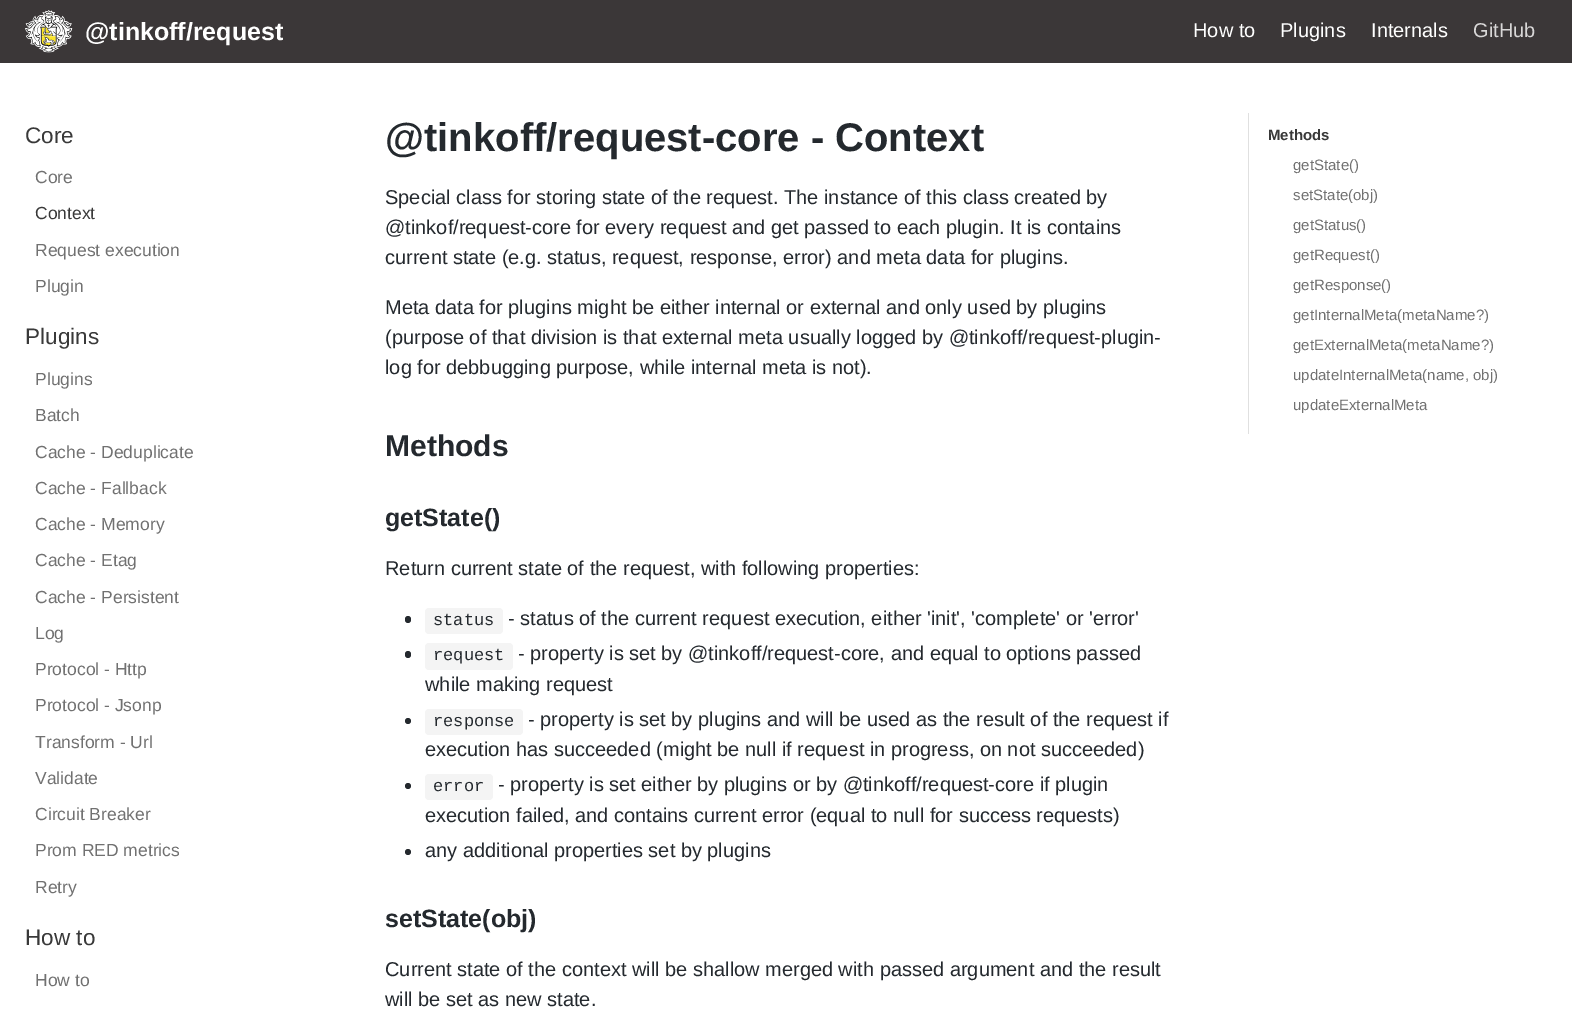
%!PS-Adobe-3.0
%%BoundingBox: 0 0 1572 1009
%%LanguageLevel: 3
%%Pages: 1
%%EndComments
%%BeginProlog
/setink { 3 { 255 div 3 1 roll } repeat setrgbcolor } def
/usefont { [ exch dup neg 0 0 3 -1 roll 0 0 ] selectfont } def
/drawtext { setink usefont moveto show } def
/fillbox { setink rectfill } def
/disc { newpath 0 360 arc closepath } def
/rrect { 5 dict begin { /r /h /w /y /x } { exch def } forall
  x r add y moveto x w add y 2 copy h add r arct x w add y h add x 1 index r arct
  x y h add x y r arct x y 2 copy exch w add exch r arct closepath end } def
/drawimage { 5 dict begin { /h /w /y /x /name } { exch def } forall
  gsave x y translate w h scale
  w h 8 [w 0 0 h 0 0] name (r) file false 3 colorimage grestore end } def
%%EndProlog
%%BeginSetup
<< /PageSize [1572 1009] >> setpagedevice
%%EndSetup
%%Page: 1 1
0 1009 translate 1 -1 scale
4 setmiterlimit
0 0 1572 1009 255 255 255 fillbox
0 0 1572 63 59 55 56 fillbox
(assets/img1.rgb) 25 10 48 43 drawimage
(@tinkoff/request) 85 40 /LiberationSans-Bold 25 255 255 255 drawtext
(How to) 1193 37 /LiberationSans-Regular 20 255 255 255 drawtext
(Plugins) 1280 37 /LiberationSans-Regular 20 255 255 255 drawtext
(Internals) 1371 37 /LiberationSans-Regular 20 255 255 255 drawtext
(GitHub) 1473 37 /LiberationSans-Regular 20 216 215 215 drawtext
(Core) 25 143 /LiberationSans-Regular 22.5 57 57 57 drawtext
(Core) 35 183 /LiberationSans-Regular 17.5 113 113 113 drawtext
(Context) 35 219 /LiberationSans-Regular 17.5 57 57 57 drawtext
(Request execution) 35 256 /LiberationSans-Regular 17.5 113 113 113 drawtext
(Plugin) 35 292 /LiberationSans-Regular 17.5 113 113 113 drawtext
(Plugins) 25 344 /LiberationSans-Regular 22.5 57 57 57 drawtext
(Plugins) 35 385 /LiberationSans-Regular 17.5 113 113 113 drawtext
(Batch) 35 421 /LiberationSans-Regular 17.5 113 113 113 drawtext
(Cache - Deduplicate) 35 458 /LiberationSans-Regular 17.5 113 113 113 drawtext
(Cache - Fallback) 35 494 /LiberationSans-Regular 17.5 113 113 113 drawtext
(Cache - Memory) 35 530 /LiberationSans-Regular 17.5 113 113 113 drawtext
(Cache - Etag) 35 566 /LiberationSans-Regular 17.5 113 113 113 drawtext
(Cache - Persistent) 35 603 /LiberationSans-Regular 17.5 113 113 113 drawtext
(Log) 35 639 /LiberationSans-Regular 17.5 113 113 113 drawtext
(Protocol - Http) 35 675 /LiberationSans-Regular 17.5 113 113 113 drawtext
(Protocol - Jsonp) 35 711 /LiberationSans-Regular 17.5 113 113 113 drawtext
(Transform - Url) 35 748 /LiberationSans-Regular 17.5 113 113 113 drawtext
(Validate) 35 784 /LiberationSans-Regular 17.5 113 113 113 drawtext
(Circuit Breaker) 35 820 /LiberationSans-Regular 17.5 113 113 113 drawtext
(Prom RED metrics) 35 856 /LiberationSans-Regular 17.5 113 113 113 drawtext
(Retry) 35 893 /LiberationSans-Regular 17.5 113 113 113 drawtext
(How to) 25 945 /LiberationSans-Regular 22.5 57 57 57 drawtext
(How to) 35 986 /LiberationSans-Regular 17.5 113 113 113 drawtext
(@tinkoff/request-core - Context) 385 151 /LiberationSans-Bold 40 36 41 46 drawtext
(Special class for storing state of the request. The instance of this class created by) 385 204 /LiberationSans-Regular 20 36 41 46 drawtext
(@tinkof/request-core for every request and get passed to each plugin. It is contains) 385 234 /LiberationSans-Regular 20 36 41 46 drawtext
(current state \(e.g. status, request, response, error\) and meta data for plugins.) 385 264 /LiberationSans-Regular 20 36 41 46 drawtext
(Meta data for plugins might be either internal or external and only used by plugins) 385 314 /LiberationSans-Regular 20 36 41 46 drawtext
(\(purpose of that division is that external meta usually logged by @tinkoff/request-plugin-) 385 344 /LiberationSans-Regular 20 36 41 46 drawtext
(log for debbugging purpose, while internal meta is not\).) 385 374 /LiberationSans-Regular 20 36 41 46 drawtext
(Methods) 385 456 /LiberationSans-Bold 30 36 41 46 drawtext
(getState\(\)) 385 526 /LiberationSans-Bold 25 36 41 46 drawtext
(Return current state of the request, with following properties:) 385 575 /LiberationSans-Regular 20 36 41 46 drawtext
405 616 6 7 3 rrect fill
244 244 244 setink
425 608 78 26 4 rrect fill
(status) 433 625 /LiberationMono-Regular 17 36 41 46 drawtext
(- status of the current request execution, either 'init', 'complete' or 'error') 508 625 /LiberationSans-Regular 20 36 41 46 drawtext
405 651 6 7 3 rrect fill
244 244 244 setink
425 643 88 27 4 rrect fill
(request) 433 660 /LiberationMono-Regular 17 36 41 46 drawtext
(- property is set by @tinkoff/request-core, and equal to options passed) 518 660 /LiberationSans-Regular 20 36 41 46 drawtext
(while making request) 425 691 /LiberationSans-Regular 20 36 41 46 drawtext
408 721 3 disc fill
244 244 244 setink
425 709 98 26 4 rrect fill
(response) 433 726 /LiberationMono-Regular 17 36 41 46 drawtext
(- property is set by plugins and will be used as the result of the request if) 528 726 /LiberationSans-Regular 20 36 41 46 drawtext
(execution has succeeded \(might be null if request in progress, on not succeeded\)) 425 756 /LiberationSans-Regular 20 36 41 46 drawtext
408 786 3 disc fill
244 244 244 setink
425 774 68 26 4 rrect fill
(error) 433 791 /LiberationMono-Regular 17 36 41 46 drawtext
(- property is set either by plugins or by @tinkoff/request-core if plugin) 498 791 /LiberationSans-Regular 20 36 41 46 drawtext
(execution failed, and contains current error \(equal to null for success requests\)) 425 822 /LiberationSans-Regular 20 36 41 46 drawtext
408 852 3 disc fill
(any additional properties set by plugins) 425 857 /LiberationSans-Regular 20 36 41 46 drawtext
(setState\(obj\)) 385 927 /LiberationSans-Bold 25 36 41 46 drawtext
(Current state of the context will be shallow merged with passed argument and the result) 385 976 /LiberationSans-Regular 20 36 41 46 drawtext
(will be set as new state.) 385 1006 /LiberationSans-Regular 20 36 41 46 drawtext
1248 113 1 321 224 224 224 fillbox
(Methods) 1268 140 /LiberationSans-Bold 15 57 57 57 drawtext
(getState\(\)) 1293 170 /LiberationSans-Regular 15 113 113 113 drawtext
(setState\(obj\)) 1293 200 /LiberationSans-Regular 15 113 113 113 drawtext
(getStatus\(\)) 1293 230 /LiberationSans-Regular 15 113 113 113 drawtext
(getRequest\(\)) 1293 260 /LiberationSans-Regular 15 113 113 113 drawtext
(getResponse\(\)) 1293 290 /LiberationSans-Regular 15 113 113 113 drawtext
(getInternalMeta\(metaName?\)) 1293 320 /LiberationSans-Regular 15 113 113 113 drawtext
(getExternalMeta\(metaName?\)) 1293 350 /LiberationSans-Regular 15 113 113 113 drawtext
(updateInternalMeta\(name, obj\)) 1293 380 /LiberationSans-Regular 15 113 113 113 drawtext
(updateExternalMeta) 1293 410 /LiberationSans-Regular 15 113 113 113 drawtext
showpage
%%EOF
